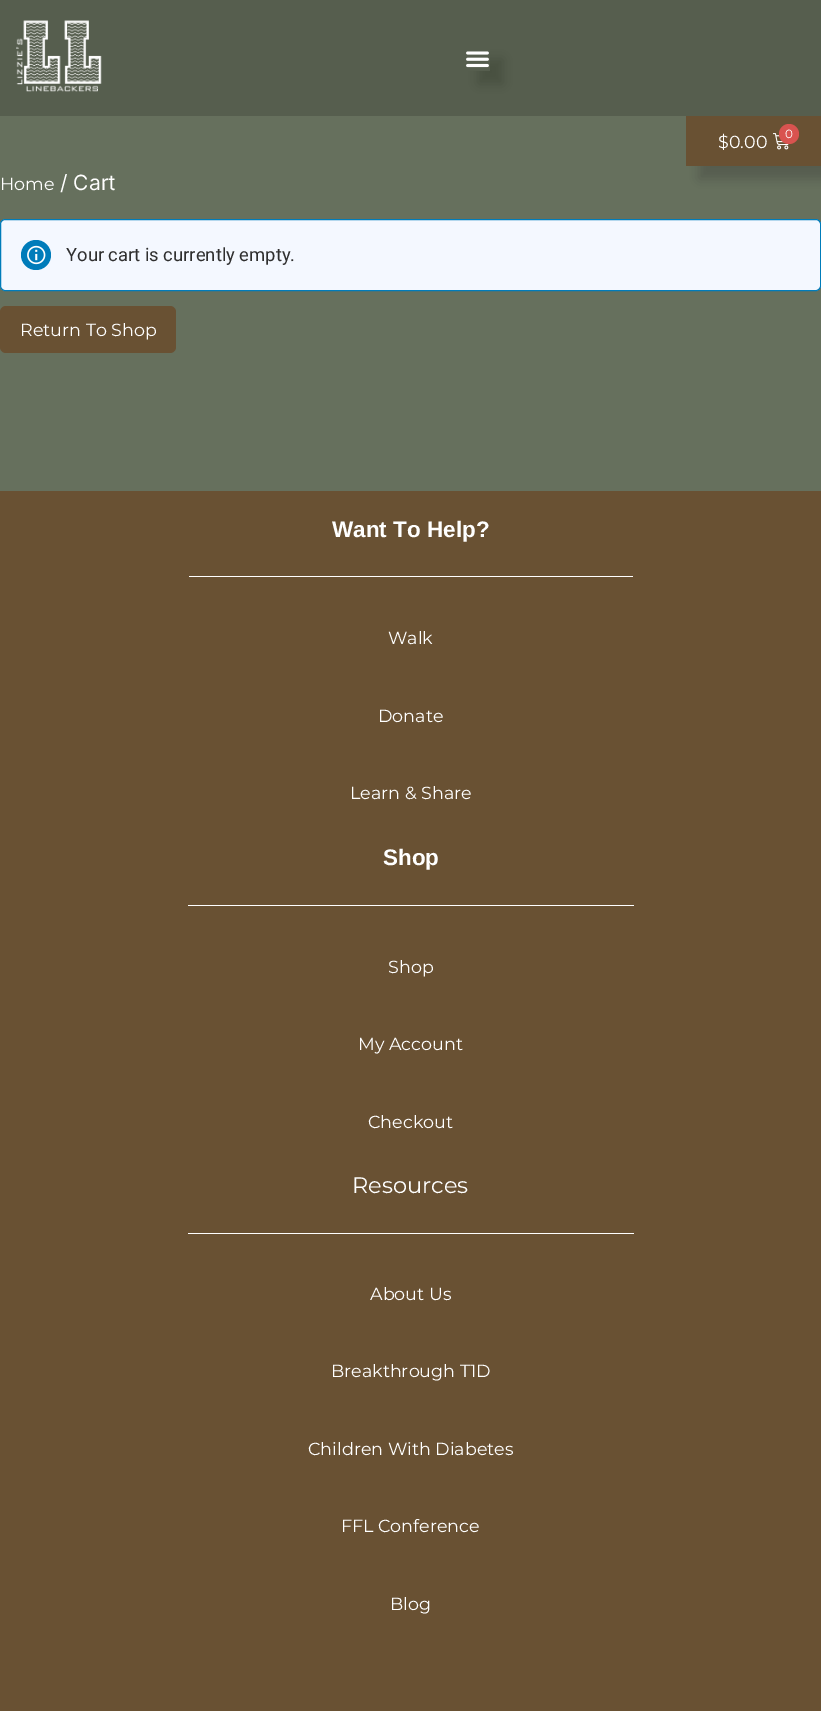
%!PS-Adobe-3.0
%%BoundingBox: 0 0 821 1711
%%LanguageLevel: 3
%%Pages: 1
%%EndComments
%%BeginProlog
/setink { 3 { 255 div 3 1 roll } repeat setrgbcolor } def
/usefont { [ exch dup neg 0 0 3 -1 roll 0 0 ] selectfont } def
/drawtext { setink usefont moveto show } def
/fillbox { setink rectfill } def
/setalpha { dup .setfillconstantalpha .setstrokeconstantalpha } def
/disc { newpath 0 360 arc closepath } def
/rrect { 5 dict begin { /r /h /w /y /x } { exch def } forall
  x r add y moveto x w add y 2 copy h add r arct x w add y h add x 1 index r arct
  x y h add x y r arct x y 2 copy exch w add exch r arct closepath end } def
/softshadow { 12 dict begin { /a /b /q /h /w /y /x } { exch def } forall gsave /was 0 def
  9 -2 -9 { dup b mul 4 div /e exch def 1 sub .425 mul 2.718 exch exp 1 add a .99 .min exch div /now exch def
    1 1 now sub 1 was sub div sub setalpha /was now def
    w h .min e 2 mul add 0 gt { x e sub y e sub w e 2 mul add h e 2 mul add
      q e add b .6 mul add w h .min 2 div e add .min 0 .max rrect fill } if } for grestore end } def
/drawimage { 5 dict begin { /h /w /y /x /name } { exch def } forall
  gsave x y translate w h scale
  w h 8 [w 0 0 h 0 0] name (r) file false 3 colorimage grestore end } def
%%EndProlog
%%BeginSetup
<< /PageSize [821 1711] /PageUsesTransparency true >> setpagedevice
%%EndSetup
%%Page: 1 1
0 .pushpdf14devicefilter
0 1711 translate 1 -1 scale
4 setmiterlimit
0 0 821 1711 102 112 93 fillbox
0 0 0 setink
699 129 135 50 0 6 0.17 softshadow
0 0 821 116 86 94 78 fillbox
(assets/img1.rgb) 16 20 86 72 drawimage
gsave
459 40 moveto 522 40 lineto 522 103 lineto 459 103 lineto closepath 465 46 moveto 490 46 lineto 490 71 lineto 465 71 lineto closepath eoclip newpath
0 0 0 setink
478 59 25 25 0 6 0.17 softshadow
grestore
(assets/img2.rgb) 466 51 23 17 drawimage
686 116 135 50 105 81 51 fillbox
($0.00) 718 148 /Montserrat-Regular 17.5 255 255 255 drawtext
(assets/img3.rgb) 773 133 16 17 drawimage
217 83 79 setink
789 134 10 disc fill
(0) 785 138 /Montserrat-Regular 12 255 255 255 drawtext
(Home) 0 190 /Montserrat-Regular 17.5 255 255 255 drawtext
(/ Cart) 60 190 /Inter-Regular 21 255 255 255 drawtext
244 248 255 setink
0.5 219.5 820 71 4.5 rrect gsave fill grestore
0 124 186 setink
stroke
36 255 15 disc fill
(assets/img4.rgb) 27 245 19 20 drawimage
(Your cart is currently empty.) 66 261 /Roboto-Regular 18.4 47 47 47 drawtext
105 81 51 setink
0 306 176 47 6 rrect fill
(Return To Shop) 20 336 /Montserrat-Regular 17.5 255 255 255 drawtext
0 491 821 1220 105 81 51 fillbox
(Want To Help?) 332 537 /LiberationSans-Bold 22.5 255 255 255 drawtext
189 576 444 1 255 255 255 fillbox
(Walk) 388 644 /Montserrat-Regular 17.5 255 255 255 drawtext
(Donate) 378 722 /Montserrat-Regular 17.5 255 255 255 drawtext
(Learn & Share) 350 799 /Montserrat-Regular 17.5 255 255 255 drawtext
(Shop) 383 865 /LiberationSans-Bold 22.5 255 255 255 drawtext
188 905 446 1 255 255 255 fillbox
(Shop) 388 973 /Montserrat-Regular 17.5 255 255 255 drawtext
(My Account) 358 1050 /Montserrat-Regular 17.5 255 255 255 drawtext
(Checkout) 368 1128 /Montserrat-Regular 17.5 255 255 255 drawtext
(Resources) 352 1193 /Montserrat-Regular 22.5 255 255 255 drawtext
188 1233 446 1 255 255 255 fillbox
(About Us) 370 1300 /Montserrat-Regular 17.5 255 255 255 drawtext
(Breakthrough T1D) 331 1377 /Montserrat-Regular 17.5 255 255 255 drawtext
(Children With Diabetes) 308 1455 /Montserrat-Regular 17.5 255 255 255 drawtext
(FFL Conference) 341 1532 /Montserrat-Regular 17.5 255 255 255 drawtext
(Blog) 390 1610 /Montserrat-Regular 17.5 255 255 255 drawtext
.poppdf14devicefilter showpage
%%EOF
